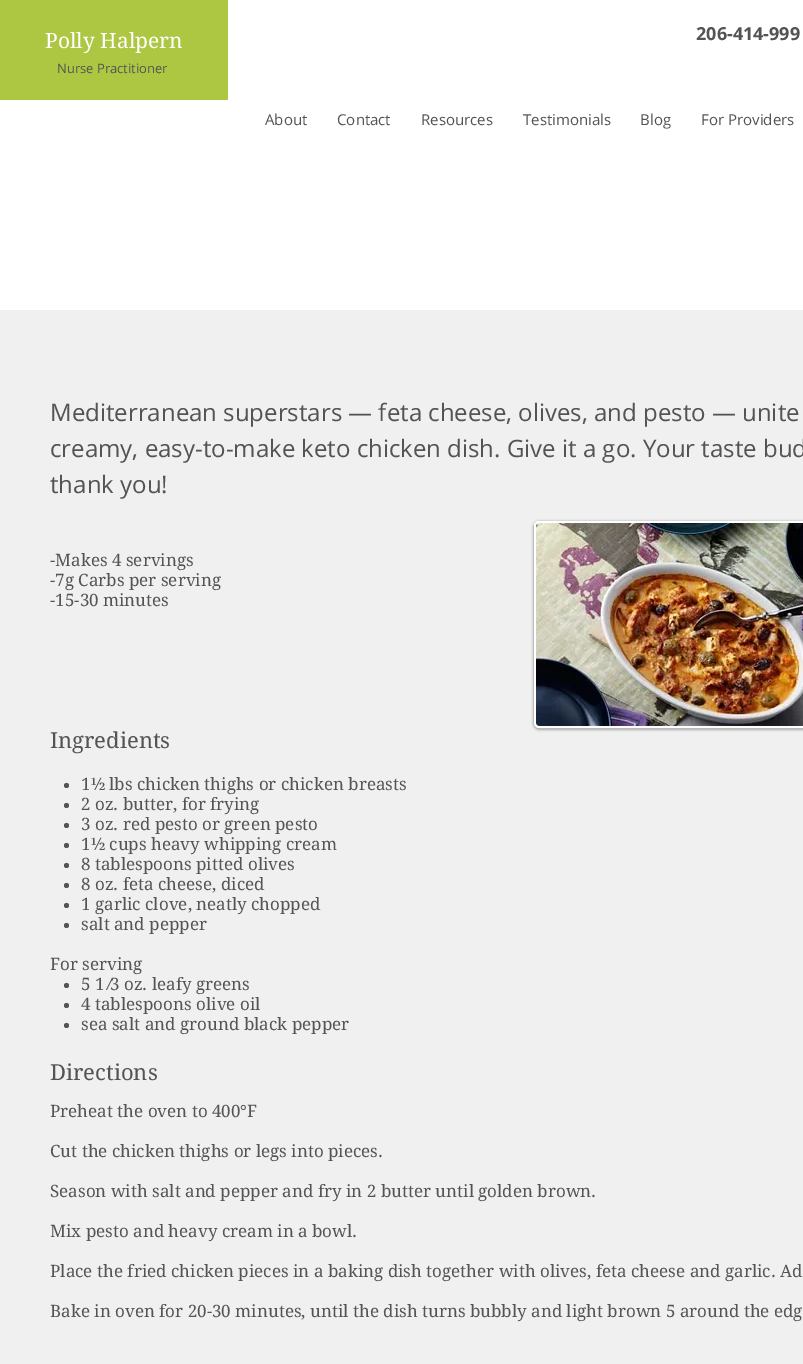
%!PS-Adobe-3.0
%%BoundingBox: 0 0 803 1364
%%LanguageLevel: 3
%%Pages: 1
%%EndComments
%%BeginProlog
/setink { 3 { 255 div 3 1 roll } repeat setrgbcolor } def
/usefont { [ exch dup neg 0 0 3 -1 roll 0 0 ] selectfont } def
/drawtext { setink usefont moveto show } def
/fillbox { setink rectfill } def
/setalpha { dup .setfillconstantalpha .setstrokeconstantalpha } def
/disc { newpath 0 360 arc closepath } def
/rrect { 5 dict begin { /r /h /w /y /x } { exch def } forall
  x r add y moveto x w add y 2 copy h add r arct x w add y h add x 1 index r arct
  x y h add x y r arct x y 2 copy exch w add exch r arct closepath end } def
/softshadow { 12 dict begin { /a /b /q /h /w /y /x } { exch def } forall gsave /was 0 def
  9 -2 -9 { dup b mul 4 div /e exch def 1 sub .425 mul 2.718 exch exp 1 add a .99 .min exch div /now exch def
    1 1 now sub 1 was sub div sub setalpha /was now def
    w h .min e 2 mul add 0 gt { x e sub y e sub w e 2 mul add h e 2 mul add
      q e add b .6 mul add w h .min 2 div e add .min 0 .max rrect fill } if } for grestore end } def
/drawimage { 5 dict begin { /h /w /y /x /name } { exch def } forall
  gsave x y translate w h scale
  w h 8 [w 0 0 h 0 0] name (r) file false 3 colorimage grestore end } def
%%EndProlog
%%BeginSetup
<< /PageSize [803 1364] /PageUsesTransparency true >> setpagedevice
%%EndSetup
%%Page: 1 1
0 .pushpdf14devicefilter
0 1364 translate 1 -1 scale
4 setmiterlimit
0 0 803 1364 255 255 255 fillbox
0 0 228 100 173 199 67 fillbox
(Polly Halpern) 45 48 /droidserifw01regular-Regular 21 255 255 255 drawtext
(Nurse Practitioner) 57 73 /OpenSans-Regular 13 85 83 83 drawtext
(206-414-999) 696 40 /OpenSans-Bold 18 85 83 83 drawtext
(About) 265 125 /OpenSans-Regular 15 85 83 83 drawtext
(Contact) 337 125 /OpenSans-Regular 15 85 83 83 drawtext
(Resources) 421 125 /OpenSans-Regular 15 85 83 83 drawtext
(Testimonials) 523 125 /OpenSans-Regular 15 85 83 83 drawtext
(Blog) 640 125 /OpenSans-Regular 15 85 83 83 drawtext
(For Providers) 701 125 /OpenSans-Regular 15 85 83 83 drawtext
0 310 803 1054 240 240 240 fillbox
(Mediterranean superstars — feta cheese, olives, and pesto — unite) 50 421 /OpenSans-Regular 24 85 83 83 drawtext
(creamy, easy-to-make keto chicken dish. Give it a go. Your taste bud) 50 457 /OpenSans-Regular 24 85 83 83 drawtext
(thank you!) 50 493 /OpenSans-Regular 24 85 83 83 drawtext
(-Makes 4 servings) 50 566 /droidserifw01regular-Regular 17 85 83 83 drawtext
(-7g Carbs per serving) 50 586 /droidserifw01regular-Regular 17 85 83 83 drawtext
(-15-30 minutes) 50 606 /droidserifw01regular-Regular 17 85 83 83 drawtext
0 0 0 setink
534 522 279 207 5 1.5 0.5 softshadow
255 255 255 setink
535 522 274 205 4 rrect gsave fill grestore
2 setlinewidth
stroke
(assets/img1.rgb) 536 523 267 203 drawimage
(Ingredients) 50 748 /droidserifw01regular-Regular 22 85 83 83 drawtext
66.5 785.5 2.5 disc fill
(1½ lbs chicken thighs or chicken breasts) 81 790 /droidserifw01regular-Regular 17 85 83 83 drawtext
66.5 805.5 2.5 disc fill
(2 oz. butter, for frying) 81 810 /droidserifw01regular-Regular 17 85 83 83 drawtext
66.5 825.5 2.5 disc fill
(3 oz. red pesto or green pesto) 81 830 /droidserifw01regular-Regular 17 85 83 83 drawtext
66.5 845.5 2.5 disc fill
(1½ cups heavy whipping cream) 81 850 /droidserifw01regular-Regular 17 85 83 83 drawtext
66.5 865.5 2.5 disc fill
(8 tablespoons pitted olives) 81 870 /droidserifw01regular-Regular 17 85 83 83 drawtext
66.5 885.5 2.5 disc fill
(8 oz. feta cheese, diced) 81 890 /droidserifw01regular-Regular 17 85 83 83 drawtext
66.5 905.5 2.5 disc fill
(1 garlic clove, neatly chopped) 81 910 /droidserifw01regular-Regular 17 85 83 83 drawtext
66.5 925.5 2.5 disc fill
(salt and pepper) 81 930 /droidserifw01regular-Regular 17 85 83 83 drawtext
(For serving) 50 970 /droidserifw01regular-Regular 17 85 83 83 drawtext
66.5 985.5 2.5 disc fill
(5 1 ⁄3 oz. leafy greens) 81 990 /droidserifw01regular-Regular 17 85 83 83 drawtext
66.5 1005.5 2.5 disc fill
(4 tablespoons olive oil) 81 1010 /droidserifw01regular-Regular 17 85 83 83 drawtext
66.5 1025.5 2.5 disc fill
(sea salt and ground black pepper) 81 1030 /droidserifw01regular-Regular 17 85 83 83 drawtext
(Directions) 50 1080 /droidserifw01regular-Regular 22 85 83 83 drawtext
(Preheat the oven to 400°F) 50 1117 /droidserifw01regular-Regular 17 85 83 83 drawtext
(Cut the chicken thighs or legs into pieces.) 50 1157 /droidserifw01regular-Regular 17 85 83 83 drawtext
(Season with salt and pepper and fry in 2 butter until golden brown.) 50 1197 /droidserifw01regular-Regular 17 85 83 83 drawtext
(Mix pesto and heavy cream in a bowl.) 50 1237 /droidserifw01regular-Regular 17 85 83 83 drawtext
(Place the fried chicken pieces in a baking dish together with olives, feta cheese and garlic. Ad) 50 1277 /droidserifw01regular-Regular 17 85 83 83 drawtext
(Bake in oven for 20-30 minutes, until the dish turns bubbly and light brown 5 around the edg) 50 1317 /droidserifw01regular-Regular 17 85 83 83 drawtext
.poppdf14devicefilter showpage
%%EOF
